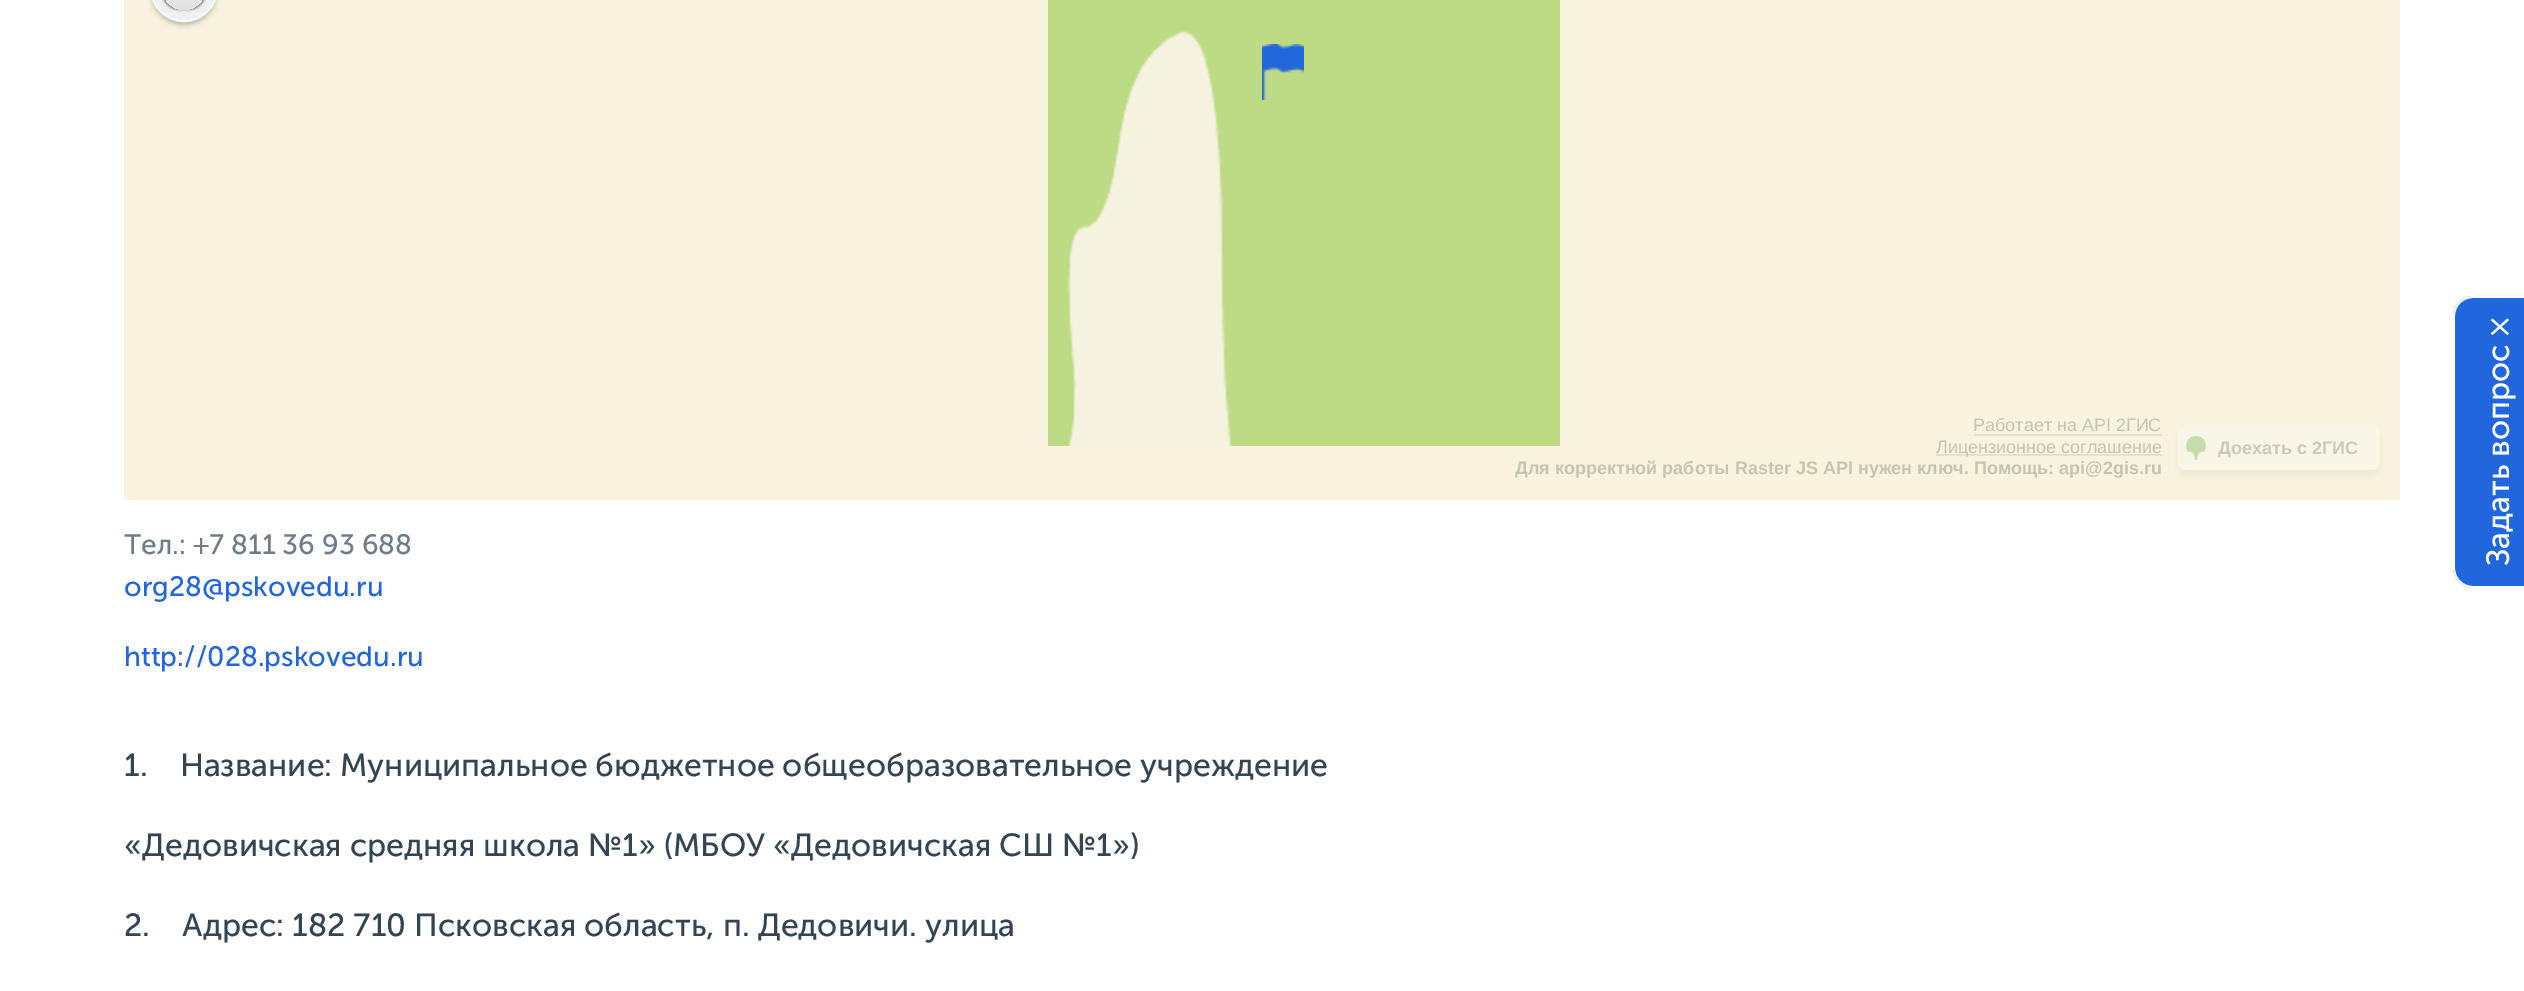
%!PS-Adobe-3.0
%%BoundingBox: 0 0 2524 991
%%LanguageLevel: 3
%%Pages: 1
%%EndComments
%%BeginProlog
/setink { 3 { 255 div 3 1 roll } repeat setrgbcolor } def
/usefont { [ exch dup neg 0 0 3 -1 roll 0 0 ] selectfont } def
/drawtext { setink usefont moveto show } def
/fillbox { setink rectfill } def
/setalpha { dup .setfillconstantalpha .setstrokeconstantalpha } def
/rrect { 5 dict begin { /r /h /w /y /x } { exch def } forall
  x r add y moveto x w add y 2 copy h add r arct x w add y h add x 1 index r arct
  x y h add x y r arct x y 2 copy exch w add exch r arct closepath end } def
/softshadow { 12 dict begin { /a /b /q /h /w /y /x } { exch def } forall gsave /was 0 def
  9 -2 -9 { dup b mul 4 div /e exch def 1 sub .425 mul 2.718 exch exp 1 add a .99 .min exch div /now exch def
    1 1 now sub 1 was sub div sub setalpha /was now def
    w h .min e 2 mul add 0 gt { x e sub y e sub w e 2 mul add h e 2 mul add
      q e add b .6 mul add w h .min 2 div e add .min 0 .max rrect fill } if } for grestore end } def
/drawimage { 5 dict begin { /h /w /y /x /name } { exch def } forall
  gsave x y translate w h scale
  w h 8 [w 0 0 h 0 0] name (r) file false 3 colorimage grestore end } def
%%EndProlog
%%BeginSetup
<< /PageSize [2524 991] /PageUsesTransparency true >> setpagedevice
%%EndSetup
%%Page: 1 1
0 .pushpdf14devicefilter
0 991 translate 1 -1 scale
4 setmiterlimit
0 0 2524 991 255 255 255 fillbox
124 0 2276 500 247 243 223 fillbox
(assets/img1.rgb) 1048 0 512 446 drawimage
(assets/img2.rgb) 1262 44 42 56 drawimage
0 0 0 setink
152 -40 64 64 32 3 0.3 softshadow
255 255 255 setink
2 setlinewidth
151 -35 66 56 33 rrect stroke
240 240 240 setink
152 -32 64 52 32 rrect fill
0 0 0 setink
162 -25 44 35 22 1 0.4 softshadow
gsave 162 -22 44 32 22 rrect clip newpath
<< /ShadingType 2 /ColorSpace /DeviceRGB /Coords [184 -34 184 10] /Extend [true true] /Function << /FunctionType 2 /Domain [0 1] /C0 [1 1 1] /C1 [0.878 0.878 0.878] /N 1 >> >> shfill grestore
(Работает на API 2ГИС) 1973 431 /LiberationSans-Regular 18 198 195 180 drawtext
1974 434 188 2 229 225 207 fillbox
1936 454 226 2 229 225 207 fillbox
(Лицензионное соглашение) 1936 453 /LiberationSans-Regular 18 198 195 180 drawtext
(Для корректной работы Raster JS API нужен ключ. Помощь: api@2gis.ru) 1515 474 /LiberationSans-Bold 18 198 195 180 drawtext
185 182 167 setink
2178 432 202 44 8 5 0.2 softshadow
249 246 231 setink
2178 426 202 44 8 rrect fill
(assets/img3.rgb) 2186 436 20 24 drawimage
(Доехать с 2ГИС) 2218 454 /LiberationSans-Bold 18 203 201 187 drawtext
(Тел.: +7 811 36 93 688) 124 554 /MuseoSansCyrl-Regular 28 111 123 135 drawtext
(org28@pskovedu.ru) 124 596 /MuseoSansCyrl-Regular 28 34 102 221 drawtext
(http://028.pskovedu.ru) 124 666 /MuseoSansCyrl-Regular 28 34 102 221 drawtext
(1.    Название: Муниципальное бюджетное общеобразовательное учреждение) 124 776 /MuseoSansCyrl-Regular 32 51 68 85 drawtext
(«Дедовичская средняя школа №1» \(МБОУ «Дедовичская СШ №1»\)) 124 856 /MuseoSansCyrl-Regular 32 51 68 85 drawtext
(2.    Адрес: 182 710 Псковская область, п. Дедовичи. улица) 124 936 /MuseoSansCyrl-Regular 32 51 68 85 drawtext
34 102 221 setink
2453 568 moveto 2453 316 lineto 2453 305 2462 296 2473 296 curveto 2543 296 lineto 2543 588 lineto 2473 588 lineto 2462 588 2453 579 2453 568 curveto closepath fill
255 255 255 setink
2453 568 moveto 2453 316 lineto 2453 305 2462 296 2473 296 curveto 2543 296 lineto 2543 588 lineto 2473 588 lineto 2462 588 2453 579 2453 568 curveto closepath 2455 568 moveto 2455 316 lineto 2455 306 2463 298 2473 298 curveto 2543 298 lineto 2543 586 lineto 2473 586 lineto 2463 586 2455 578 2455 568 curveto closepath eofill
gsave 2509 336 translate -90 rotate 0 0 moveto (×) show grestore
gsave 2509 566 translate -90 rotate 0 0 moveto (Задать вопрос) show grestore
.poppdf14devicefilter showpage
%%EOF
